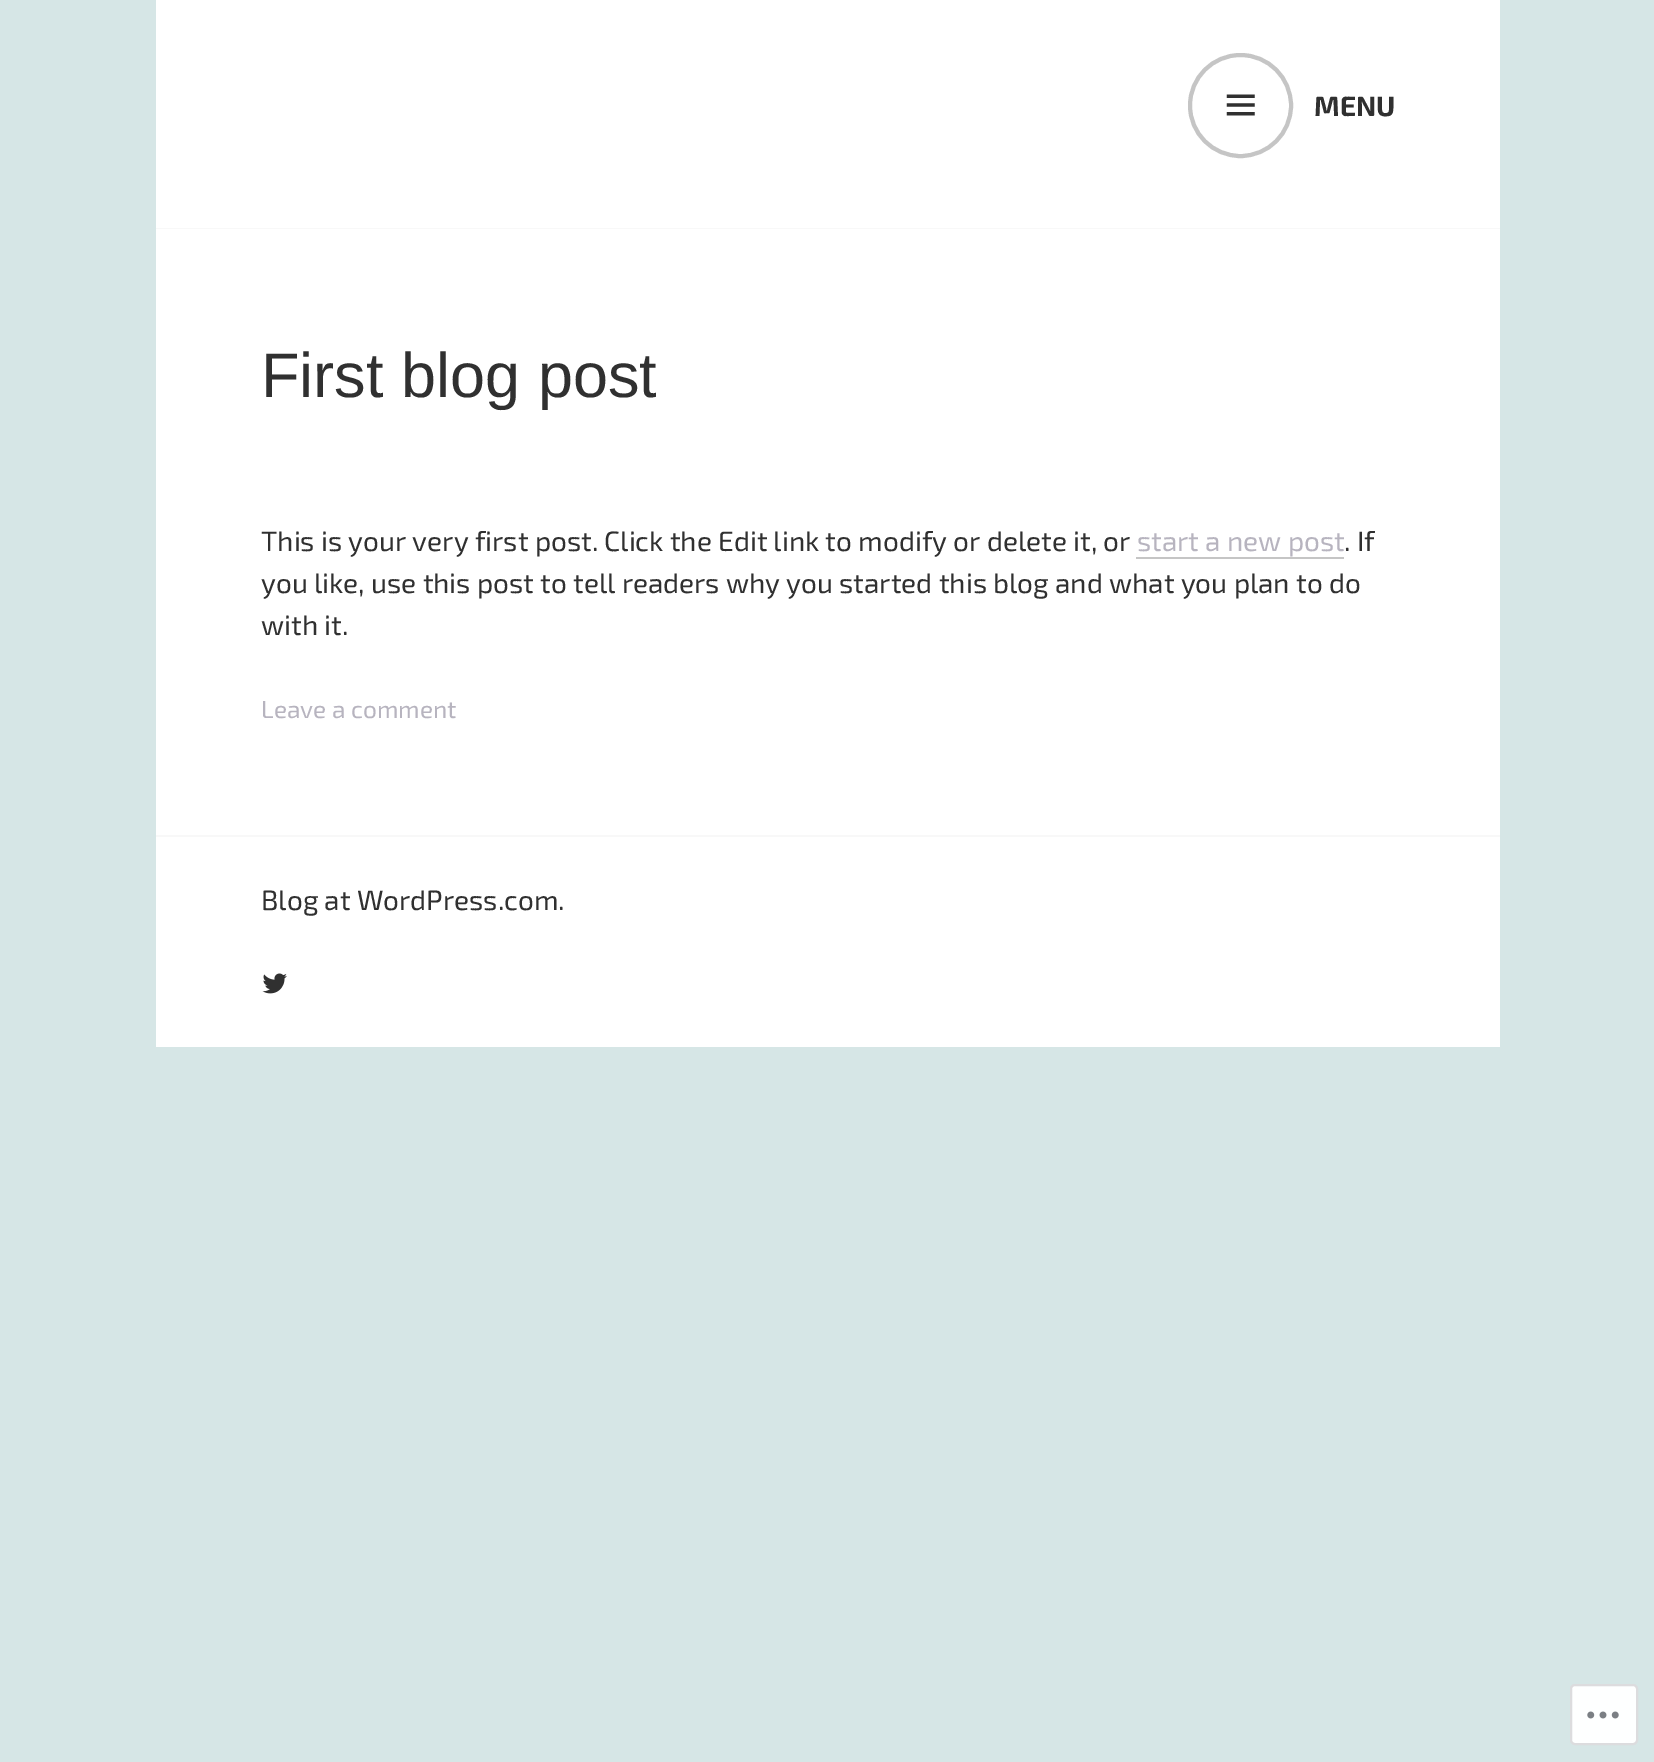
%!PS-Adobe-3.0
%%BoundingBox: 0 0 1654 1762
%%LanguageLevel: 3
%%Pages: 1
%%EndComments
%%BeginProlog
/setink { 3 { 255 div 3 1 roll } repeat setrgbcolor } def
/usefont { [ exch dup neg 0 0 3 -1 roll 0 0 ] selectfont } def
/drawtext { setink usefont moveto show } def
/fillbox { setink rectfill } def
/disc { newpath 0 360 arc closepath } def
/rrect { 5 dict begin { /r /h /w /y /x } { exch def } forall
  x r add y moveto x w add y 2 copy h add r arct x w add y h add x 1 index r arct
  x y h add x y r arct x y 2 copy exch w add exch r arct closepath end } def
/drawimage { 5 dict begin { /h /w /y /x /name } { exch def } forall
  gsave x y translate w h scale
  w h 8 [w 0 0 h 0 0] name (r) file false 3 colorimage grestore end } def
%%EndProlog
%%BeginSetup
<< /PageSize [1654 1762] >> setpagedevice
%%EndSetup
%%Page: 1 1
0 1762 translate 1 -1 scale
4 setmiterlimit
0 0 1654 1762 214 230 230 fillbox
156 0 1344 228 255 255 255 fillbox
156 228 1344 1 248 248 248 fillbox
197 197 197 setink
4 setlinewidth
1240.5 105.5 50.5 disc stroke
(assets/img1.rgb) 1226 94 29 22 drawimage
(MENU) 1314 116 /Exo2-Bold 28 48 48 48 drawtext
156 229 1344 606 255 255 255 fillbox
(First blog post) 261 397 /Arimo-Regular 63 48 48 48 drawtext
(This is your very first post. Click the Edit link to modify or delete it, or) 261 551 /Exo2-Regular 28 48 48 48 drawtext
(start a new post) 1137 551 /Exo2-Regular 28 183 180 191 drawtext
1136 557 208 2 197 197 197 fillbox
(. If) 1344 551 /Exo2-Regular 28 48 48 48 drawtext
(you like, use this post to tell readers why you started this blog and what you plan to do) 261 593 /Exo2-Regular 28 48 48 48 drawtext
(with it.) 261 635 /Exo2-Regular 28 48 48 48 drawtext
(Leave a comment) 261 718 /Exo2-Regular 24.5 183 180 191 drawtext
156 837 1344 210 255 255 255 fillbox
156 835 1344 2 248 248 248 fillbox
(Blog at WordPress.com.) 261 910 /Exo2-Regular 28 48 48 48 drawtext
(assets/img2.rgb) 262 973 25 21 drawimage
254 255 255 setink
1571 1685 66 59 4 rrect gsave fill grestore
220 220 222 setink
2 setlinewidth
stroke
(assets/img3.rgb) 1587 1711 32 8 drawimage
showpage
%%EOF
